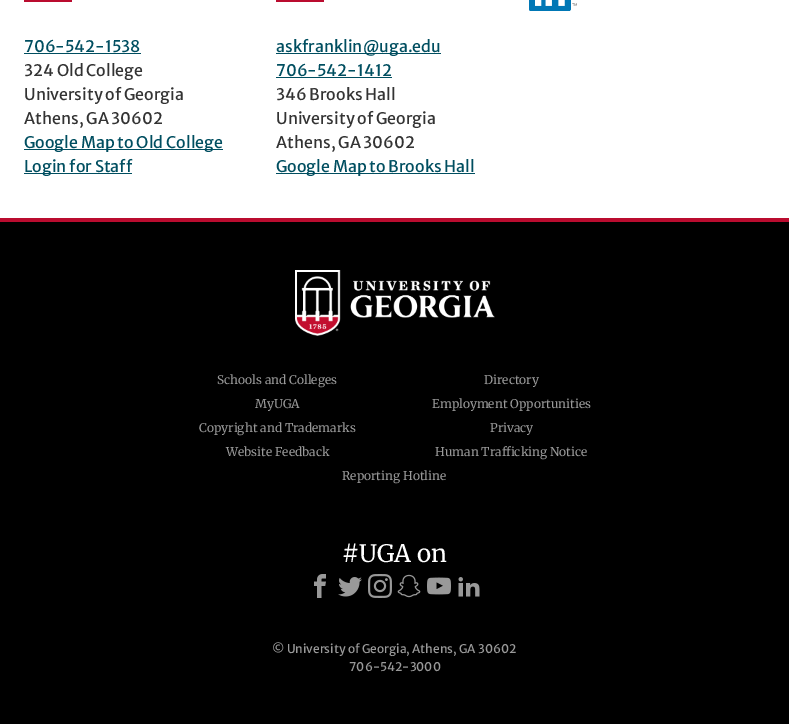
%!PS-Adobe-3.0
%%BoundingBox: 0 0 789 725
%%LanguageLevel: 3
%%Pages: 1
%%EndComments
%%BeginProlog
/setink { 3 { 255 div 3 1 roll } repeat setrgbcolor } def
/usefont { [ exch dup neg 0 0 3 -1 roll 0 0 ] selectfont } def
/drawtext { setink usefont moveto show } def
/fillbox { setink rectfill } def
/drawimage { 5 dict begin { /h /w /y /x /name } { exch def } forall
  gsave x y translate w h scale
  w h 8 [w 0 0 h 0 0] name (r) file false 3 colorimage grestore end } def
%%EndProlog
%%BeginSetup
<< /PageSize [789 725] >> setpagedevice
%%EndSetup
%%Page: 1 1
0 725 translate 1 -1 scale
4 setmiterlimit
0 0 789 725 255 255 255 fillbox
(assets/img1.rgb) 529 0 48 11 drawimage
24 0 48 2 186 12 47 fillbox
(706-542-1538) 24 52 /MerriweatherSans-Regular 16 0 78 96 drawtext
24 53 117 1 0 78 96 fillbox
(324 Old College) 24 76 /MerriweatherSans-Regular 16 51 51 51 drawtext
(University of Georgia) 24 100 /MerriweatherSans-Regular 16 51 51 51 drawtext
(Athens, GA 30602) 24 124 /MerriweatherSans-Regular 16 51 51 51 drawtext
24 149 199 1 0 78 96 fillbox
(Google Map to Old College) 24 148 /MerriweatherSans-Regular 16 0 78 96 drawtext
24 173 108 1 0 78 96 fillbox
(Login for Staff) 24 172 /MerriweatherSans-Regular 16 0 78 96 drawtext
276 0 48 2 186 12 47 fillbox
276 53 165 1 0 78 96 fillbox
(askfranklin@uga.edu) 276 52 /MerriweatherSans-Regular 16 0 78 96 drawtext
(706-542-1412) 276 76 /MerriweatherSans-Regular 16 0 78 96 drawtext
276 77 116 1 0 78 96 fillbox
(346 Brooks Hall) 276 100 /MerriweatherSans-Regular 16 51 51 51 drawtext
(University of Georgia) 276 124 /MerriweatherSans-Regular 16 51 51 51 drawtext
(Athens, GA 30602) 276 148 /MerriweatherSans-Regular 16 51 51 51 drawtext
276 173 199 1 0 78 96 fillbox
(Google Map to Brooks Hall) 276 172 /MerriweatherSans-Regular 16 0 78 96 drawtext
0 222 789 502 0 0 0 fillbox
0 218 789 4 186 12 47 fillbox
(assets/img2.rgb) 295 270 200 66 drawimage
(Schools and Colleges) 217 384 /Merriweather-Light 12 153 153 153 drawtext
(Directory) 484 384 /Merriweather-Light 12 153 153 153 drawtext
(MyUGA) 255 408 /Merriweather-Light 12 153 153 153 drawtext
(Employment Opportunities) 432 408 /Merriweather-Light 12 153 153 153 drawtext
(Copyright and Trademarks) 199 432 /Merriweather-Light 12 153 153 153 drawtext
(Privacy) 490 432 /Merriweather-Light 12 153 153 153 drawtext
(Website Feedback) 226 456 /Merriweather-Light 12 153 153 153 drawtext
(Human Trafficking Notice) 435 456 /Merriweather-Light 12 153 153 153 drawtext
(Reporting Hotline) 342 480 /Merriweather-Light 12 153 153 153 drawtext
(#UGA on) 342 562 /Merriweather-Light 24 255 255 255 drawtext
(assets/img3.rgb) 314 574 12 24 drawimage
(assets/img4.rgb) 338 577 24 20 drawimage
(assets/img5.rgb) 368 574 24 24 drawimage
(assets/img6.rgb) 397 574 24 24 drawimage
(assets/img7.rgb) 427 577 24 18 drawimage
(assets/img8.rgb) 458 577 22 20 drawimage
(© University of Georgia, Athens, GA 30602) 272 653 /MerriweatherSans-Regular 12 153 153 153 drawtext
(706-542-3000) 349 671 /MerriweatherSans-Regular 12 153 153 153 drawtext
showpage
%%EOF
